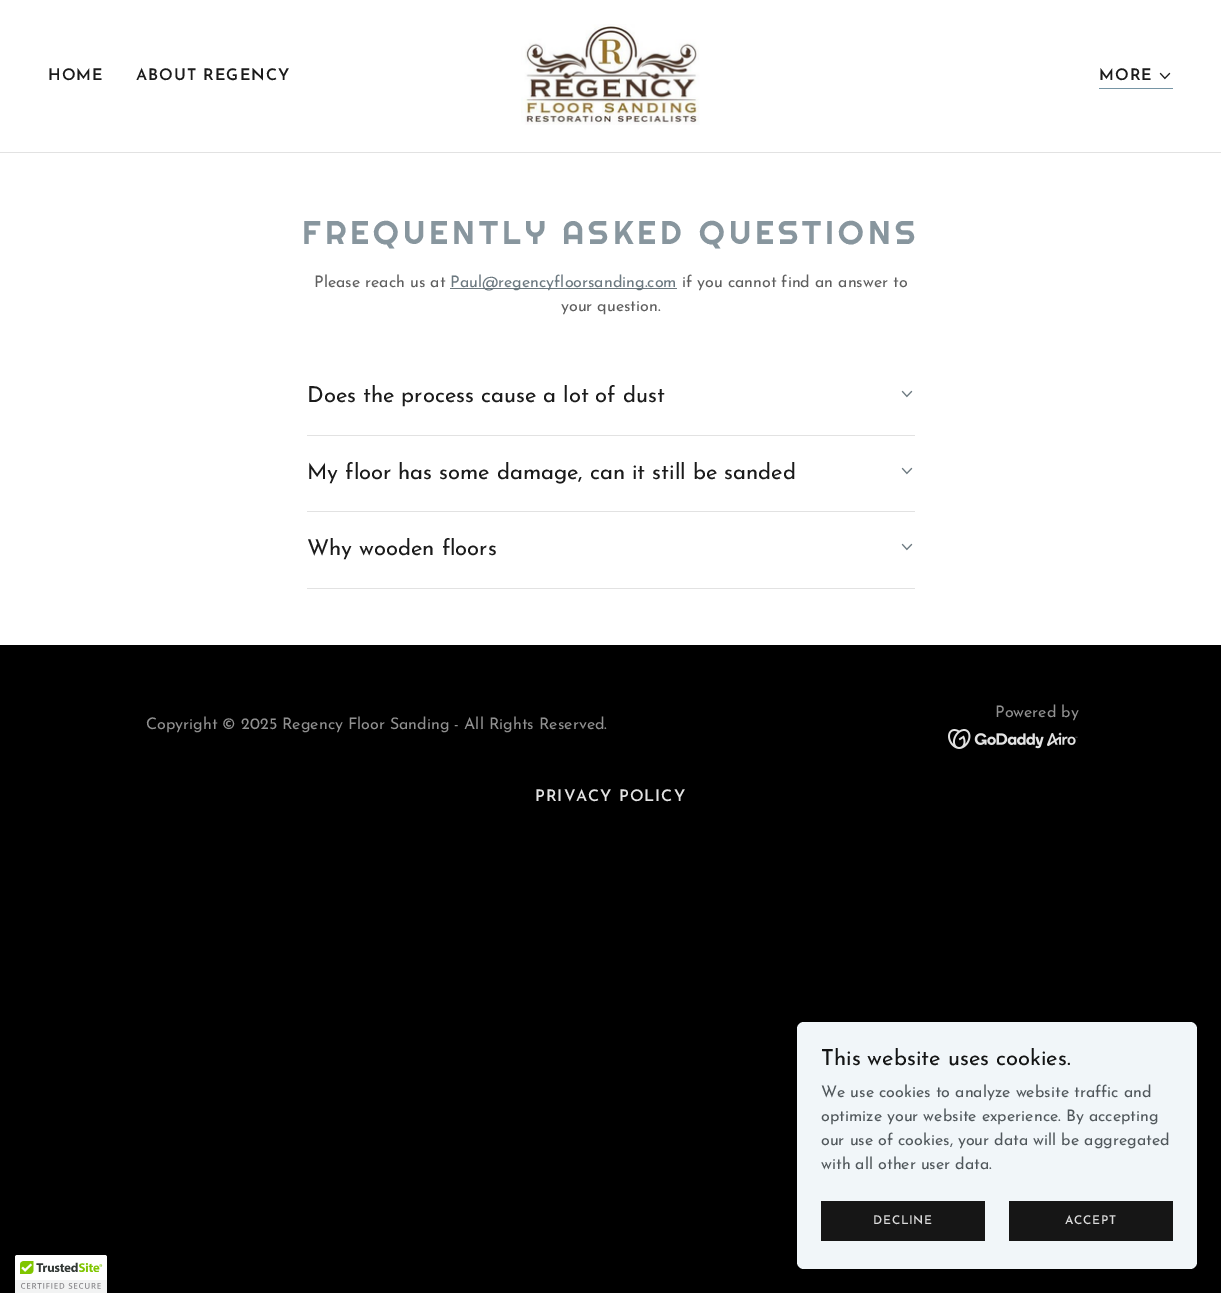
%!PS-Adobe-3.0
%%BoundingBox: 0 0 1221 1293
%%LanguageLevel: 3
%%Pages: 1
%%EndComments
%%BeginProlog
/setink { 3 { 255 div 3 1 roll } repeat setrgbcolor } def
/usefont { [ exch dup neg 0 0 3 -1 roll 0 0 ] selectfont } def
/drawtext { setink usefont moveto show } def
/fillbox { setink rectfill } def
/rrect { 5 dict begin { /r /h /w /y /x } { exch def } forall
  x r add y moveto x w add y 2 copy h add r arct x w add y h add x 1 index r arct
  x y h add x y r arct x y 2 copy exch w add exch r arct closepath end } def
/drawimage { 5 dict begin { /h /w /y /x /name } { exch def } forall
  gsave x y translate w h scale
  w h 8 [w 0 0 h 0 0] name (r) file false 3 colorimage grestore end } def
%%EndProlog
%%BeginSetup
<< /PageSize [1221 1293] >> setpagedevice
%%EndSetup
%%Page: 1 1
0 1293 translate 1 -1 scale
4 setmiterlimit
0 0 1221 1293 0 0 0 fillbox
0 0 1221 152 255 255 255 fillbox
/JosefinSans-SemiBold 16 usefont
27 27 27 setink
48 80 moveto 1 0 (HOME) ashow
136 80 moveto 1 0 (ABOUT REGENCY) ashow
(assets/img1.rgb) 521 24 179 101 drawimage
1099 88 74 1 118 149 165 fillbox
27 27 27 setink
1099 80 moveto 1 0 (MORE) ashow
(assets/img2.rgb) 1159 72 12 8 drawimage
0 152 1221 1 226 226 226 fillbox
0 153 1221 492 255 255 255 fillbox
/Righteous-Regular 33 usefont
136 150 158 setink
302 244 moveto 4 0 (FREQUENTLY ASKED QUESTIONS) ashow
(Please reach us at) 314 287 /JosefinSans-Regular 16 94 94 94 drawtext
450 288 227 1 107 120 127 fillbox
(Paul@regencyfloorsanding.com) 450 287 /JosefinSans-Regular 16 107 120 127 drawtext
(if you cannot find an answer to) 682 287 /JosefinSans-Regular 16 94 94 94 drawtext
(your question.) 561 311 /JosefinSans-Regular 16 94 94 94 drawtext
(Does the process cause a lot of dust) 307 402 /JosefinSans-Regular 22 27 27 27 drawtext
(assets/img3.rgb) 901 390 12 8 drawimage
307 435 608 1 226 226 226 fillbox
(My floor has some damage, can it still be sanded) 307 479 /JosefinSans-Regular 22 27 27 27 drawtext
(assets/img3.rgb) 901 467 12 8 drawimage
307 511 608 1 226 226 226 fillbox
(Why wooden floors) 307 555 /JosefinSans-Regular 22 27 27 27 drawtext
(assets/img3.rgb) 901 543 12 8 drawimage
307 588 608 1 226 226 226 fillbox
(Powered by) 995 717 /JosefinSans-Regular 16 145 145 145 drawtext
(assets/img4.rgb) 948 729 130 20 drawimage
(Copyright © 2025 Regency Floor Sanding - All Rights Reserved.) 146 729 /JosefinSans-Regular 16 145 145 145 drawtext
/JosefinSans-SemiBold 16 usefont
226 226 226 setink
535 801 moveto 1 0 (PRIVACY POLICY) ashow
241 246 249 setink
797 1022 400 247 7 rrect fill
(This website uses cookies.) 821 1065 /JosefinSans-Regular 22 20 21 21 drawtext
(We use cookies to analyze website traffic and) 821 1097 /JosefinSans-Regular 16 80 87 91 drawtext
(optimize your website experience. By accepting) 821 1121 /JosefinSans-Regular 16 80 87 91 drawtext
(our use of cookies, your data will be aggregated) 821 1145 /JosefinSans-Regular 16 80 87 91 drawtext
(with all other user data.) 821 1169 /JosefinSans-Regular 16 80 87 91 drawtext
821 1201 164 40 22 22 22 fillbox
/JosefinSans-SemiBold 12 usefont
219 219 219 setink
873 1224 moveto 0.75 0 (DECLINE) ashow
1009 1201 164 40 22 22 22 fillbox
219 219 219 setink
1065 1224 moveto 0.75 0 (ACCEPT) ashow
(assets/img5.rgb) 15 1255 92 38 drawimage
showpage
%%EOF
